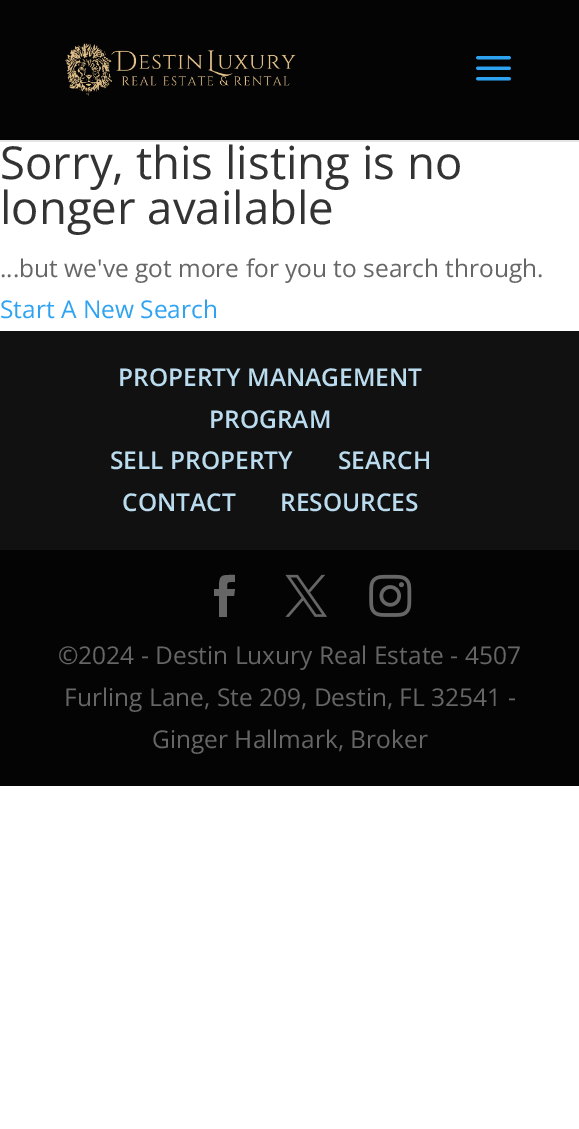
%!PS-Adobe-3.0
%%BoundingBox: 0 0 579 1129
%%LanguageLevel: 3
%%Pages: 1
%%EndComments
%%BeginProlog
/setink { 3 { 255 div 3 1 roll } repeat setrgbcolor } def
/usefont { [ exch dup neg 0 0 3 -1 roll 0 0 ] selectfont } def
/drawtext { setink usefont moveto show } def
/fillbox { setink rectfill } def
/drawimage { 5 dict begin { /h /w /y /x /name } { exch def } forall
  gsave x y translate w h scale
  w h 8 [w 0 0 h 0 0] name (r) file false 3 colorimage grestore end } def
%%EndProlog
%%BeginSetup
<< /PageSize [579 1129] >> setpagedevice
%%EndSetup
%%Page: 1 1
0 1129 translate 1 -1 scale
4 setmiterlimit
0 0 579 1129 255 255 255 fillbox
0 140 579 2 230 230 230 fillbox
0 0 579 140 4 4 4 fillbox
(assets/img1.rgb) 65 43 231 53 drawimage
(assets/img2.rgb) 476 56 35 25 drawimage
(Sorry, this listing is no) 0 179 /OpenSans-Regular 45.5 51 51 51 drawtext
(longer available) 0 224 /OpenSans-Regular 45.5 51 51 51 drawtext
(...but we've got more for you to search through.) 0 277 /OpenSans-Regular 24.5 102 102 102 drawtext
(Start A New Search) 0 318 /OpenSans-Regular 24.5 46 163 242 drawtext
0 550 579 236 4 4 4 fillbox
0 331 579 219 17 17 17 fillbox
(PROPERTY MANAGEMENT) 118 386 /OpenSans-SemiBold 24.5 187 220 239 drawtext
(PROGRAM) 209 428 /OpenSans-SemiBold 24.5 187 220 239 drawtext
(SELL PROPERTY) 110 469 /OpenSans-SemiBold 24.5 187 220 239 drawtext
(SEARCH) 338 469 /OpenSans-SemiBold 24.5 187 220 239 drawtext
(CONTACT) 122 511 /OpenSans-SemiBold 24.5 187 220 239 drawtext
(RESOURCES) 280 511 /OpenSans-SemiBold 24.5 187 220 239 drawtext
102 102 102 setink
219 617 moveto 227 617 lineto 227 596 lineto 234 596 lineto 235 589 lineto 227 589 lineto 227 581 227 582 235 582 curveto 235 575 lineto 221 575 219 574 219 589 curveto 214 589 lineto 214 596 lineto 219 596 lineto closepath fill
(assets/img3.rgb) 285 574 42 43 drawimage
(assets/img4.rgb) 369 574 43 43 drawimage
(©2024 - Destin Luxury Real Estate - 4507) 58 664 /OpenSans-Regular 24.5 102 102 102 drawtext
(Furling Lane, Ste 209, Destin, FL 32541 -) 64 706 /OpenSans-Regular 24.5 102 102 102 drawtext
(Ginger Hallmark, Broker) 152 748 /OpenSans-Regular 24.5 102 102 102 drawtext
showpage
%%EOF
